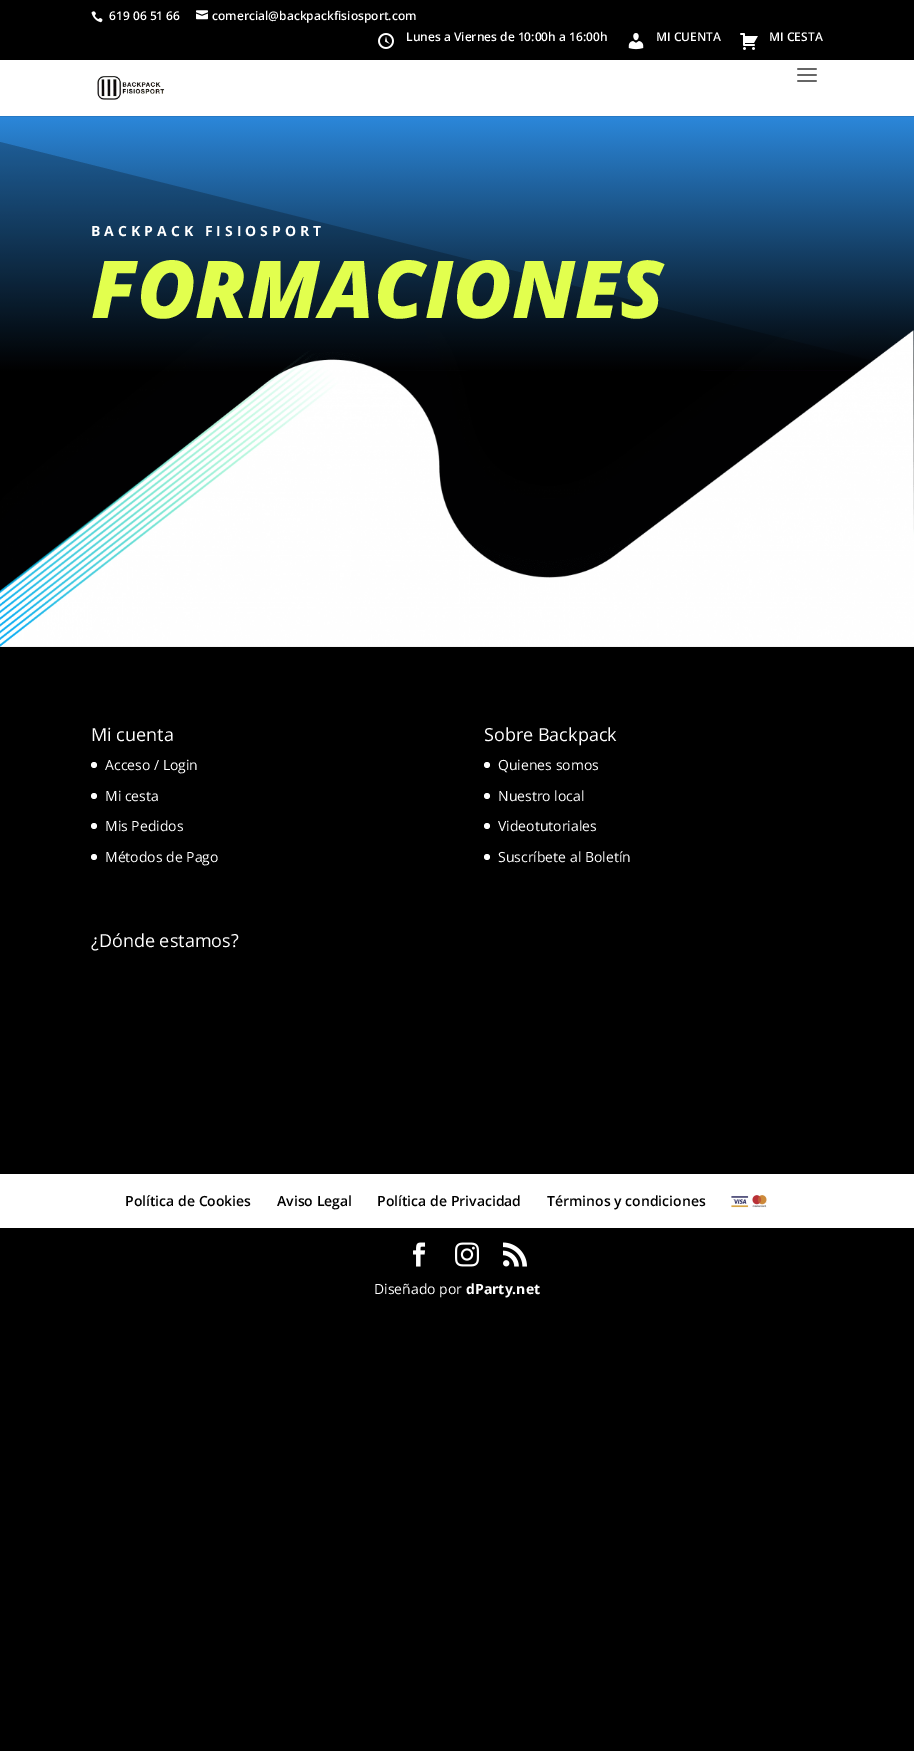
%!PS-Adobe-3.0
%%BoundingBox: 0 0 914 1751
%%LanguageLevel: 3
%%Pages: 1
%%EndComments
%%BeginProlog
/setink { 3 { 255 div 3 1 roll } repeat setrgbcolor } def
/usefont { [ exch dup neg 0 0 3 -1 roll 0 0 ] selectfont } def
/drawtext { setink usefont moveto show } def
/fillbox { setink rectfill } def
/setalpha { dup .setfillconstantalpha .setstrokeconstantalpha } def
/disc { newpath 0 360 arc closepath } def
/drawimage { 5 dict begin { /h /w /y /x /name } { exch def } forall
  gsave x y translate w h scale
  w h 8 [w 0 0 h 0 0] name (r) file false 3 colorimage grestore end } def
%%EndProlog
%%BeginSetup
<< /PageSize [914 1751] /PageUsesTransparency true >> setpagedevice
%%EndSetup
%%Page: 1 1
0 .pushpdf14devicefilter
0 1751 translate 1 -1 scale
4 setmiterlimit
0 0 914 1751 0 0 0 fillbox
(assets/img1.rgb) 91 11 12 12 drawimage
(619 06 51 66) 109 20 /OpenSans-SemiBold 12 255 255 255 drawtext
(assets/img2.rgb) 196 10 12 10 drawimage
(comercial@backpackfisiosport.com) 212 20 /OpenSans-SemiBold 12 255 255 255 drawtext
(assets/img3.rgb) 378 33 16 16 drawimage
(Lunes a Viernes de 10:00h a 16:00h) 406 41 /OpenSans-SemiBold 12 255 255 255 drawtext
(assets/img4.rgb) 628 33 16 17 drawimage
(MI CUENTA) 656 41 /OpenSans-SemiBold 12 255 255 255 drawtext
(assets/img5.rgb) 740 33 18 17 drawimage
(MI CESTA) 769 41 /OpenSans-SemiBold 12 255 255 255 drawtext
0 116 914 1 38 121 196 fillbox
0 60 914 56 255 255 255 fillbox
(assets/img6.rgb) 97 76 68 24 drawimage
(assets/img7.rgb) 797 68 20 14 drawimage
(assets/img8.rgb) 0 117 914 254 drawimage
0.24 setalpha
0 0 0 setink
0 142 moveto 0 371 lineto 914 371 lineto closepath fill
/OpenSans-Bold 14 usefont
1 setalpha
255 255 255 setink
91 236 moveto 4 0 (BACKPACK FISIOSPORT) ashow
(FORMACIONES) 91 318 /OpenSans-ExtraBoldItalic 80 226 255 78 drawtext
(assets/img9.rgb) 0 330 914 317 drawimage
(Mi cuenta) 91 741 /OpenSans-Regular 18 255 255 255 drawtext
94 765 3 disc fill
(Acceso / Login) 105 770 /OpenSans-Regular 14 255 255 255 drawtext
94 796 3 disc fill
(Mi cesta) 105 801 /OpenSans-Regular 14 255 255 255 drawtext
94 826 3 disc fill
(Mis Pedidos) 105 831 /OpenSans-Regular 14 255 255 255 drawtext
94 857 3 disc fill
(Métodos de Pago) 105 862 /OpenSans-Regular 14 255 255 255 drawtext
(Sobre Backpack) 484 741 /OpenSans-Regular 18 255 255 255 drawtext
487 765 3 disc fill
(Quienes somos) 498 770 /OpenSans-Regular 14 255 255 255 drawtext
487 796 3 disc fill
(Nuestro local) 498 801 /OpenSans-Regular 14 255 255 255 drawtext
487 826 3 disc fill
(Videotutoriales) 498 831 /OpenSans-Regular 14 255 255 255 drawtext
487 857 3 disc fill
(Suscríbete al Boletín) 498 862 /OpenSans-Regular 14 255 255 255 drawtext
(¿Dónde estamos?) 91 947 /OpenSans-Regular 18 255 255 255 drawtext
0 1174 914 54 255 255 255 fillbox
(Política de Cookies) 125 1206 /OpenSans-SemiBold 14 0 0 0 drawtext
(Aviso Legal) 277 1206 /OpenSans-SemiBold 14 0 0 0 drawtext
(Política de Privacidad) 377 1206 /OpenSans-SemiBold 14 0 0 0 drawtext
(Términos y condiciones) 547 1206 /OpenSans-SemiBold 14 0 0 0 drawtext
(assets/img10.rgb) 731 1195 36 13 drawimage
(assets/img11.rgb) 413 1242 13 25 drawimage
(assets/img12.rgb) 455 1242 24 25 drawimage
(assets/img13.rgb) 503 1242 24 25 drawimage
(Diseñado por) 374 1294 /OpenSans-Regular 14 255 255 255 drawtext
(dParty.net) 466 1294 /OpenSans-Bold 14 255 255 255 drawtext
.poppdf14devicefilter showpage
%%EOF
